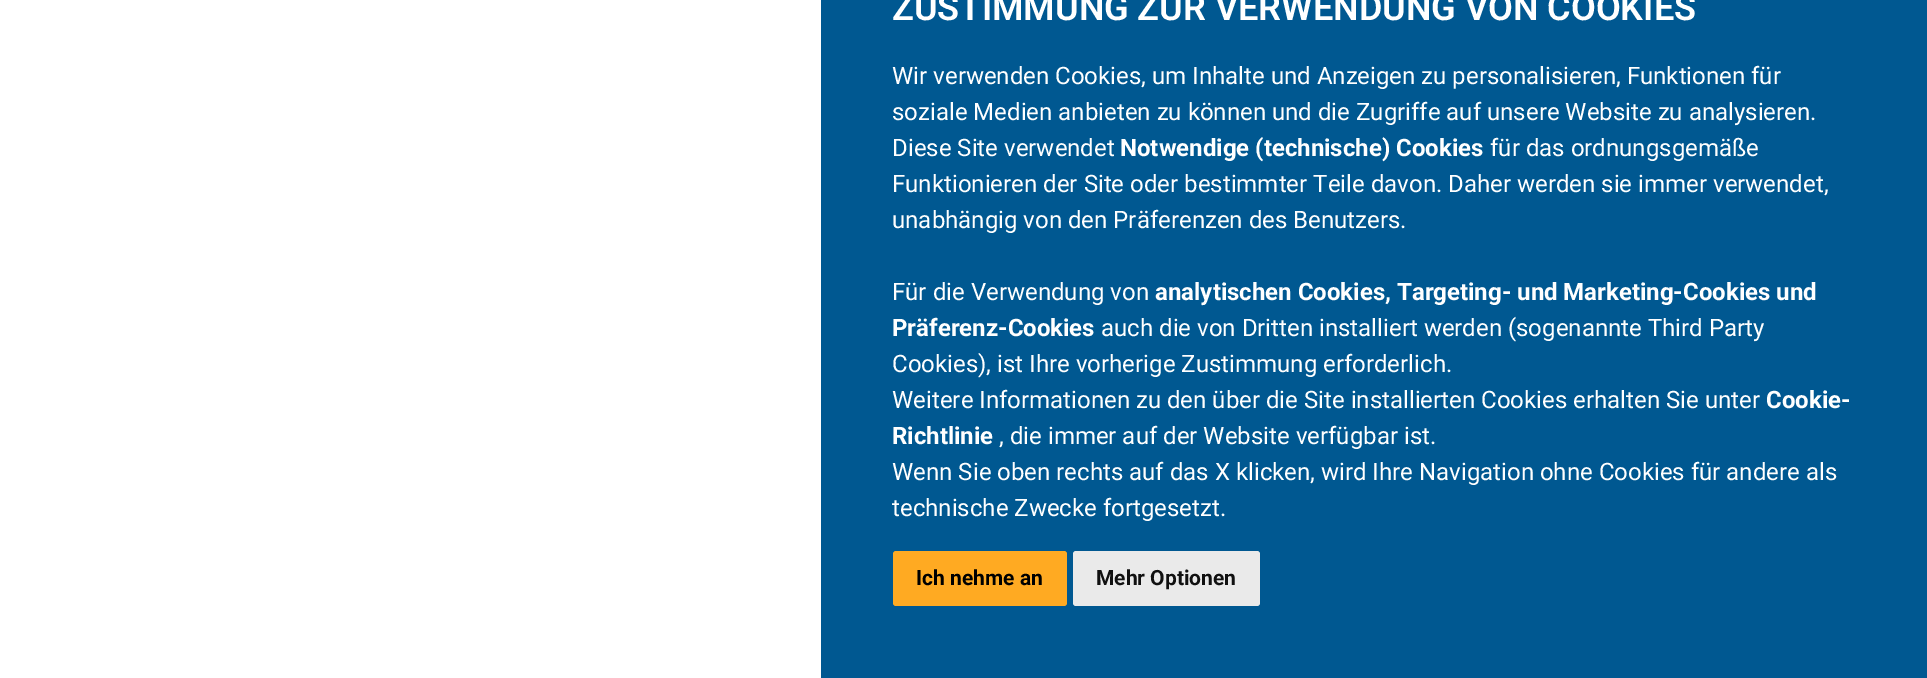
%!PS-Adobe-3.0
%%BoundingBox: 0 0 1927 678
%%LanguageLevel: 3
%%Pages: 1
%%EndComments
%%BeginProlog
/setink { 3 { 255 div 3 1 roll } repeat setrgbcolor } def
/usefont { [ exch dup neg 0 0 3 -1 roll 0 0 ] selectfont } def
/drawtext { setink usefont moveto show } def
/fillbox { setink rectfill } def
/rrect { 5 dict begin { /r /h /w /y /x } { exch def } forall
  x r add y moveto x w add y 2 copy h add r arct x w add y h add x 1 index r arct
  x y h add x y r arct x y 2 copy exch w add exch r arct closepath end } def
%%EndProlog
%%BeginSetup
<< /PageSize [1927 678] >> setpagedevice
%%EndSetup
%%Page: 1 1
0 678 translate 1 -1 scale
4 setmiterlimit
0 0 1927 678 255 255 255 fillbox
821 0 1106 678 0 88 145 fillbox
(ZUSTIMMUNG ZUR VERWENDUNG VON COOKIES) 892 20 /Roboto-SemiBold 36 255 255 255 drawtext
(Wir verwenden Cookies, um Inhalte und Anzeigen zu personalisieren, Funktionen für) 892 84 /Roboto-Regular 24 255 255 255 drawtext
(soziale Medien anbieten zu können und die Zugriffe auf unsere Website zu analysieren.) 892 120 /Roboto-Regular 24 255 255 255 drawtext
(Diese Site verwendet) 892 156 /Roboto-Regular 24 255 255 255 drawtext
(Notwendige \(technische\) Cookies) 1120 156 /Roboto-Bold 24 255 255 255 drawtext
(für das ordnungsgemäße) 1490 156 /Roboto-Regular 24 255 255 255 drawtext
(Funktionieren der Site oder bestimmter Teile davon. Daher werden sie immer verwendet,) 892 192 /Roboto-Regular 24 255 255 255 drawtext
(unabhängig von den Präferenzen des Benutzers.) 892 228 /Roboto-Regular 24 255 255 255 drawtext
(Für die Verwendung von) 892 300 /Roboto-Regular 24 255 255 255 drawtext
(analytischen Cookies, Targeting- und Marketing-Cookies und) 1155 300 /Roboto-Bold 24 255 255 255 drawtext
(Präferenz-Cookies) 892 336 /Roboto-Bold 24 255 255 255 drawtext
(auch die von Dritten installiert werden \(sogenannte Third Party) 1101 336 /Roboto-Regular 24 255 255 255 drawtext
(Cookies\), ist Ihre vorherige Zustimmung erforderlich.) 892 372 /Roboto-Regular 24 255 255 255 drawtext
(Weitere Informationen zu den über die Site installierten Cookies erhalten Sie unter) 892 408 /Roboto-Regular 24 255 255 255 drawtext
(Cookie-) 1766 408 /Roboto-Bold 24 255 255 255 drawtext
(Richtlinie) 892 444 /Roboto-Bold 24 255 255 255 drawtext
(, die immer auf der Website verfügbar ist.) 999 444 /Roboto-Regular 24 255 255 255 drawtext
(Wenn Sie oben rechts auf das X klicken, wird Ihre Navigation ohne Cookies für andere als) 892 480 /Roboto-Regular 24 255 255 255 drawtext
(technische Zwecke fortgesetzt.) 892 516 /Roboto-Regular 24 255 255 255 drawtext
255 170 34 setink
893 551 174 55 3 rrect fill
(Ich nehme an) 916 585 /Roboto-Bold 21 0 0 0 drawtext
234 234 234 setink
1073 551 187 55 3 rrect fill
(Mehr Optionen) 1096 585 /Roboto-Bold 21 17 17 17 drawtext
showpage
%%EOF
